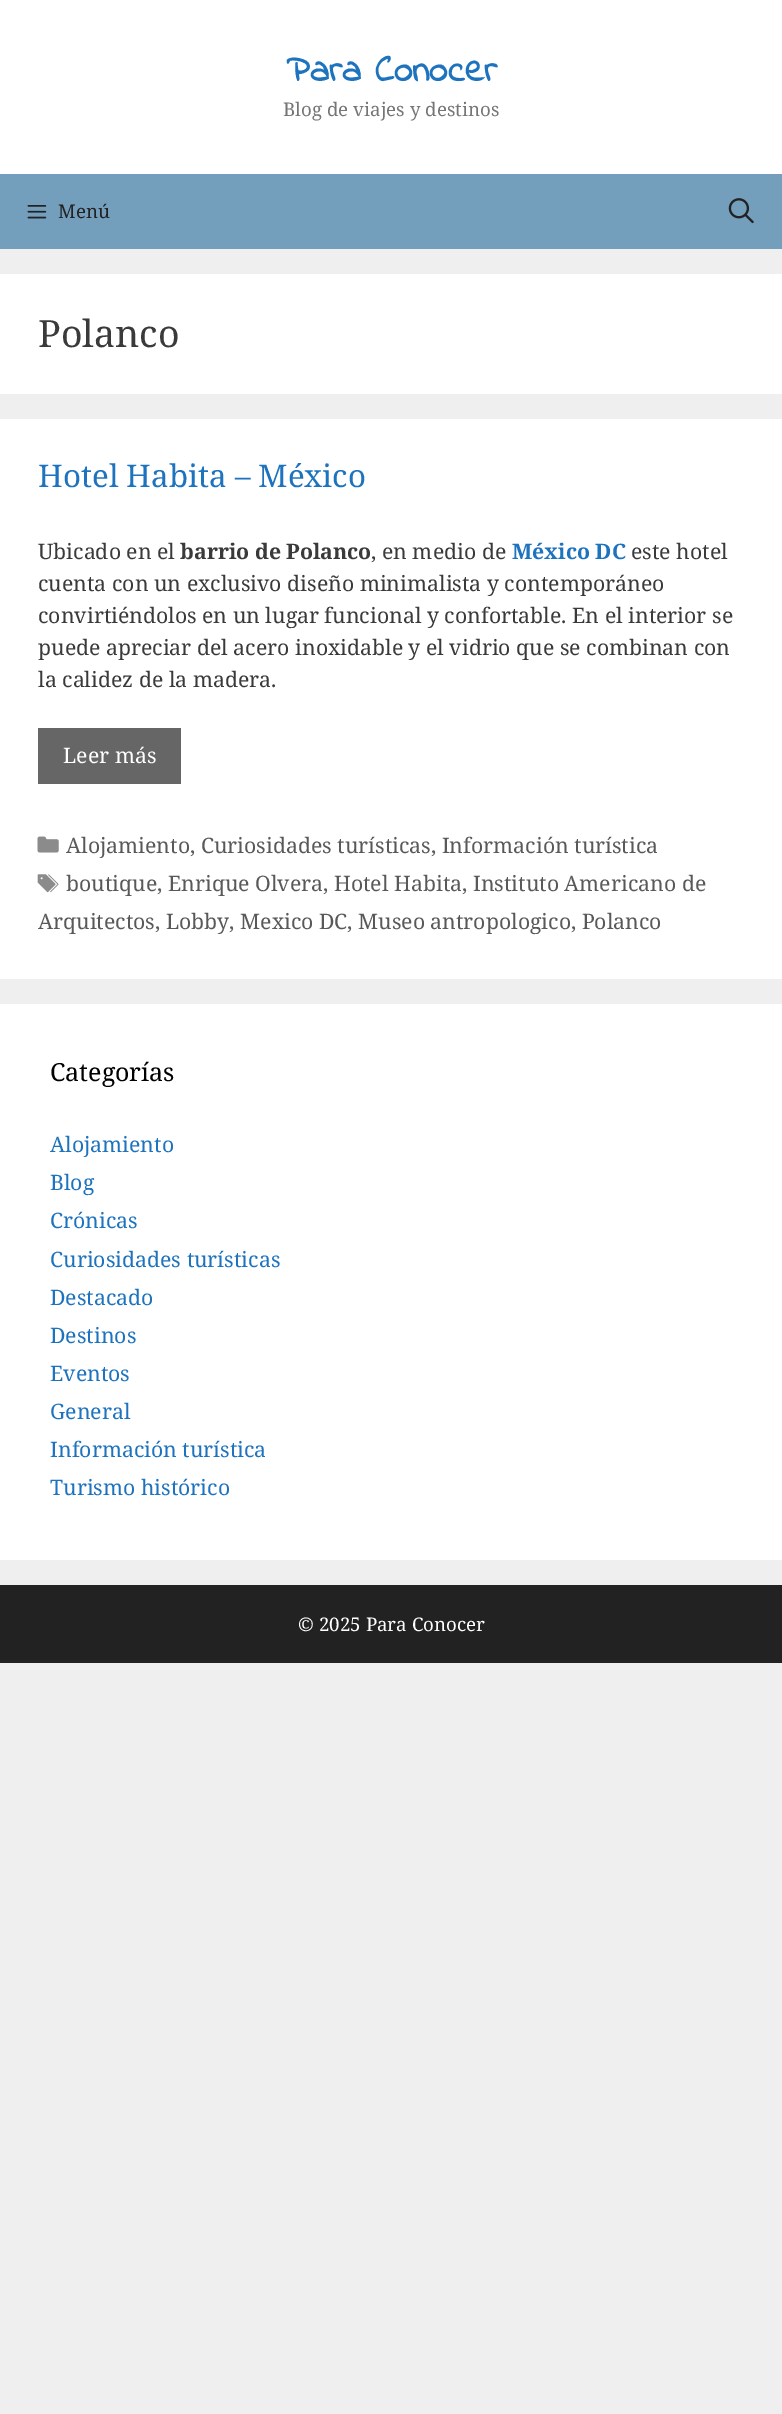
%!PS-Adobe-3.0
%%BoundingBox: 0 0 782 2414
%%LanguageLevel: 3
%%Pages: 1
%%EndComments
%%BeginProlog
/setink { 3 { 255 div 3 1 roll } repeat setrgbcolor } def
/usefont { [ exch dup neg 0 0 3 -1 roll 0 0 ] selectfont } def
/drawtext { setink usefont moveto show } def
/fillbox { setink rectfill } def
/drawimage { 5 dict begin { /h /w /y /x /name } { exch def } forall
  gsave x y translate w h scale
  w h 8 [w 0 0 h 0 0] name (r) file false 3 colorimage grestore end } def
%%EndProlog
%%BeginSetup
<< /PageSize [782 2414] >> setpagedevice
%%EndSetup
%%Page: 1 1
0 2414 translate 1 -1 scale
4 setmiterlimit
0 0 782 2414 239 239 239 fillbox
0 0 782 174 255 255 255 fillbox
(Para Conocer) 286 81 /IndieFlower-Bold 37.5 30 115 190 drawtext
(Blog de viajes y destinos) 283 116 /NotoSerif-Regular 18.75 117 117 117 drawtext
0 174 782 75 115 158 188 fillbox
(assets/img1.rgb) 27 205 20 14 drawimage
(Menú) 58 218 /NotoSerif-Regular 18.75 34 34 34 drawtext
(assets/img2.rgb) 728 198 26 26 drawimage
0 274 782 120 255 255 255 fillbox
(Polanco) 38 347 /NotoSerif-Regular 37.5 58 58 58 drawtext
0 419 782 560 255 255 255 fillbox
(Hotel Habita – México) 38 487 /NotoSerif-Regular 31.25 30 115 190 drawtext
(Ubicado en el) 38 559 /NotoSerif-Regular 21.25 58 58 58 drawtext
(barrio de Polanco) 180 559 /NotoSerif-Bold 21.25 58 58 58 drawtext
(, en medio de) 371 559 /NotoSerif-Regular 21.25 58 58 58 drawtext
(México DC) 512 559 /NotoSerif-Bold 21.25 30 115 190 drawtext
(este hotel) 631 559 /NotoSerif-Regular 21.25 58 58 58 drawtext
(cuenta con un exclusivo diseño minimalista y contemporáneo) 38 591 /NotoSerif-Regular 21.25 58 58 58 drawtext
(convirtiéndolos en un lugar funcional y confortable. En el interior se) 38 623 /NotoSerif-Regular 21.25 58 58 58 drawtext
(puede apreciar del acero inoxidable y el vidrio que se combinan con) 38 655 /NotoSerif-Regular 21.25 58 58 58 drawtext
(la calidez de la madera.) 38 687 /NotoSerif-Regular 21.25 58 58 58 drawtext
38 728 143 56 102 102 102 fillbox
(Leer más) 63 763 /NotoSerif-Regular 21.25 255 255 255 drawtext
(assets/img3.rgb) 37 836 22 17 drawimage
(Alojamiento, Curiosidades turísticas, Información turística) 66 853 /NotoSerif-Regular 21.25 89 89 89 drawtext
(assets/img4.rgb) 37 874 22 19 drawimage
(boutique, Enrique Olvera, Hotel Habita, Instituto Americano de) 66 891 /NotoSerif-Regular 21.25 89 89 89 drawtext
(Arquitectos, Lobby, Mexico DC, Museo antropologico, Polanco) 38 929 /NotoSerif-Regular 21.25 89 89 89 drawtext
0 1004 782 556 255 255 255 fillbox
(Categorías) 50 1081 /NotoSerif-Regular 25 0 0 0 drawtext
(Alojamiento) 50 1152 /NotoSerif-Regular 21.25 30 115 190 drawtext
(Blog) 50 1190 /NotoSerif-Regular 21.25 30 115 190 drawtext
(Crónicas) 50 1228 /NotoSerif-Regular 21.25 30 115 190 drawtext
(Curiosidades turísticas) 50 1267 /NotoSerif-Regular 21.25 30 115 190 drawtext
(Destacado) 50 1305 /NotoSerif-Regular 21.25 30 115 190 drawtext
(Destinos) 50 1343 /NotoSerif-Regular 21.25 30 115 190 drawtext
(Eventos) 50 1381 /NotoSerif-Regular 21.25 30 115 190 drawtext
(General) 50 1419 /NotoSerif-Regular 21.25 30 115 190 drawtext
(Información turística) 50 1457 /NotoSerif-Regular 21.25 30 115 190 drawtext
(Turismo histórico) 50 1495 /NotoSerif-Regular 21.25 30 115 190 drawtext
0 1585 782 78 34 34 34 fillbox
(© 2025 Para Conocer) 298 1631 /NotoSerif-Regular 18.75 255 255 255 drawtext
showpage
%%EOF
